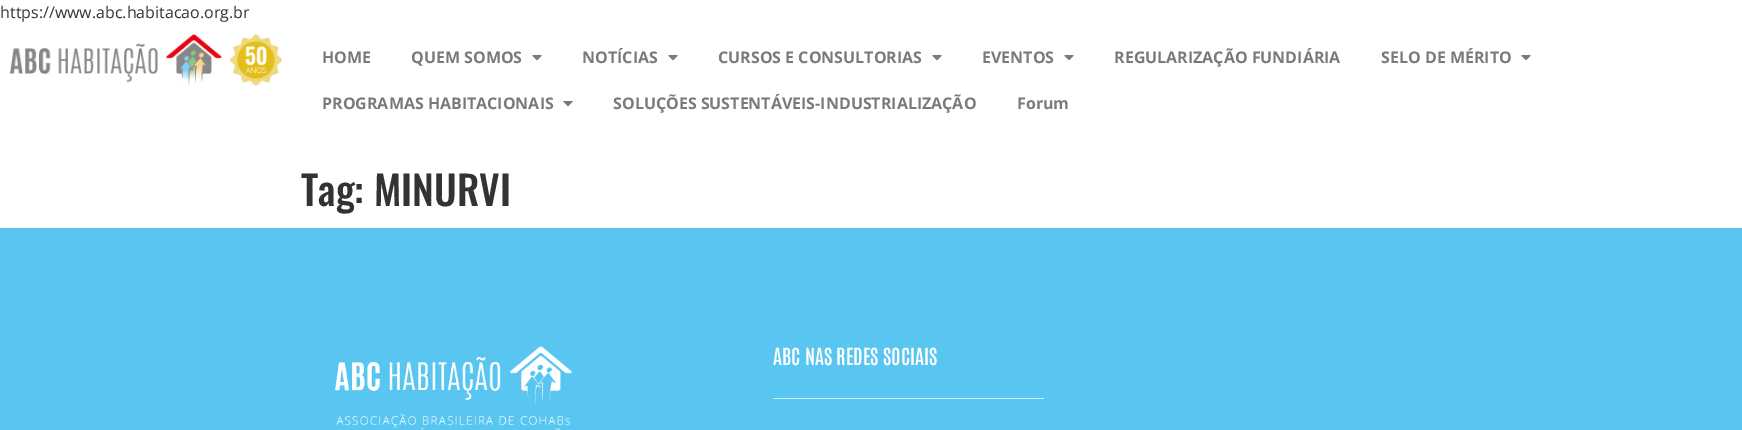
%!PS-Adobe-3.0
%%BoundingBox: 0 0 1742 430
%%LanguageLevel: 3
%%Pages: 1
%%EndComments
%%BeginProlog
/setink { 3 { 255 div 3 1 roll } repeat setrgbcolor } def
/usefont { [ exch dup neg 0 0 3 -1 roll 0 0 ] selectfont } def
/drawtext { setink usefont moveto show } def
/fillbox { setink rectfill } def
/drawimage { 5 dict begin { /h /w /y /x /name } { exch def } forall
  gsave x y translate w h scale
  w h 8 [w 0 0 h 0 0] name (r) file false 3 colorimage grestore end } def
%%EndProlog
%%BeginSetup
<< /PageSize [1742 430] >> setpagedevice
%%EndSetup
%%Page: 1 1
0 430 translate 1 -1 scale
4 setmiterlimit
0 0 1742 430 255 255 255 fillbox
(https://www.abc.habitacao.org.br) 0 18 /OpenSans-Regular 16 51 51 51 drawtext
(assets/img1.rgb) 10 34 272 52 drawimage
(HOME) 322 63 /OpenSans-Bold 16 122 122 122 drawtext
(QUEM SOMOS) 411 63 /OpenSans-Bold 16 122 122 122 drawtext
(assets/img2.rgb) 532 55 10 6 drawimage
(NOTÍCIAS) 582 63 /OpenSans-Bold 16 122 122 122 drawtext
(assets/img2.rgb) 668 55 10 6 drawimage
(CURSOS E CONSULTORIAS) 718 63 /OpenSans-Bold 16 122 122 122 drawtext
(assets/img2.rgb) 932 55 10 6 drawimage
(EVENTOS) 982 63 /OpenSans-Bold 16 122 122 122 drawtext
(assets/img2.rgb) 1064 55 10 6 drawimage
(REGULARIZAÇÃO FUNDIÁRIA) 1114 63 /OpenSans-Bold 16 122 122 122 drawtext
(SELO DE MÉRITO) 1381 63 /OpenSans-Bold 16 122 122 122 drawtext
(assets/img2.rgb) 1521 55 10 6 drawimage
(PROGRAMAS HABITACIONAIS) 322 109 /OpenSans-Bold 16 122 122 122 drawtext
(assets/img2.rgb) 563 101 10 6 drawimage
(SOLUÇÕES SUSTENTÁVEIS-INDUSTRIALIZAÇÃO) 613 109 /OpenSans-Bold 16 122 122 122 drawtext
(Forum) 1017 109 /OpenSans-Bold 16 122 122 122 drawtext
(Tag: MINURVI) 301 206 /Oswald-Medium 40 51 51 51 drawtext
0 228 1742 202 89 198 242 fillbox
(assets/img3.rgb) 335 346 237 84 drawimage
(ABC NAS REDES SOCIAIS) 773 365 /Antonio-SemiBold 20 255 255 255 drawtext
773 398 271 1 202 237 251 fillbox
showpage
%%EOF
